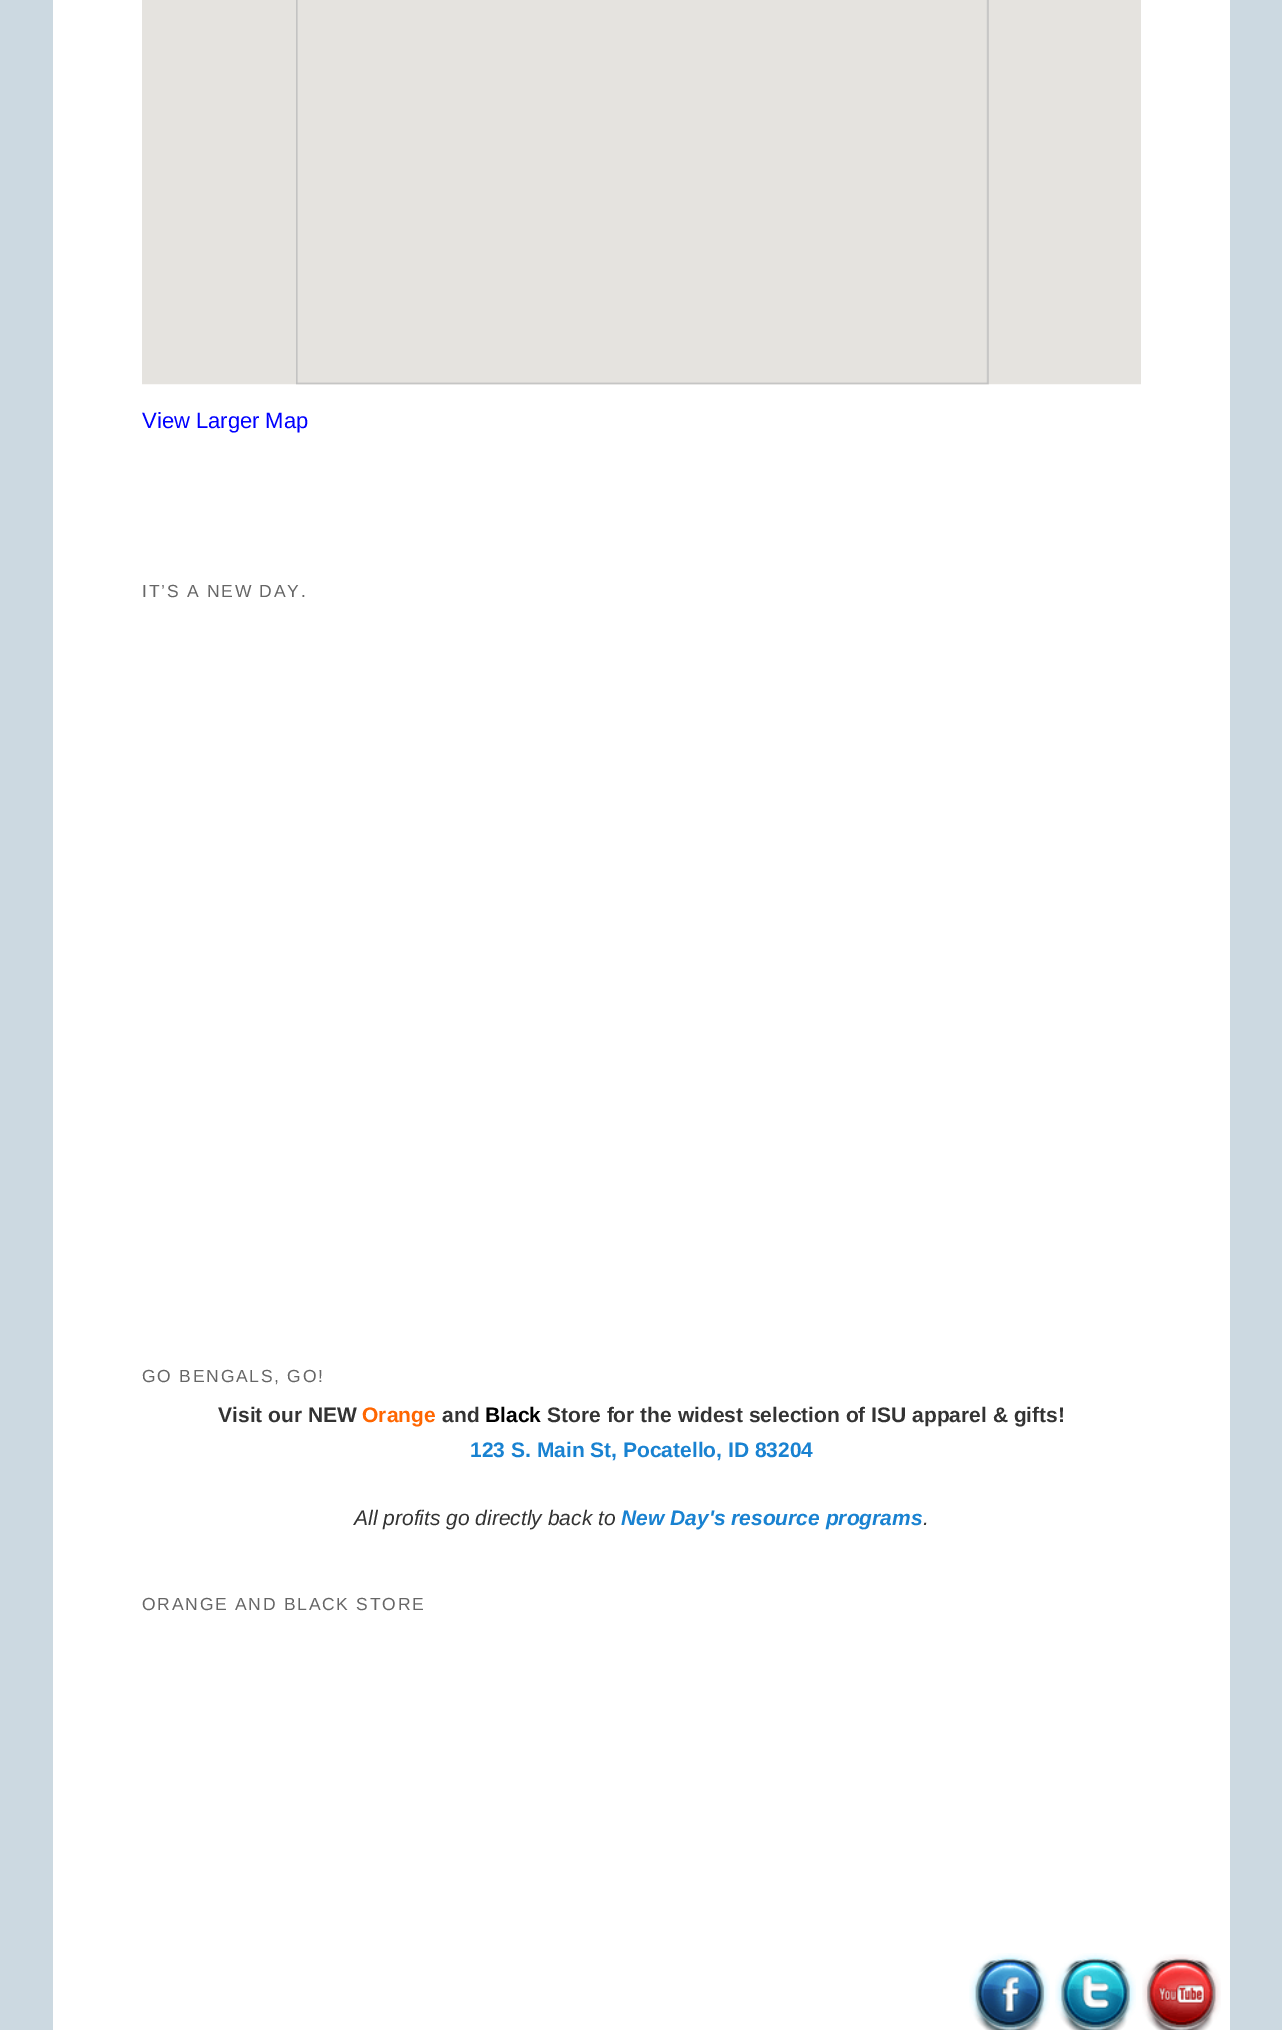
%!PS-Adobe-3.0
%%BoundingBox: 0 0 1282 2030
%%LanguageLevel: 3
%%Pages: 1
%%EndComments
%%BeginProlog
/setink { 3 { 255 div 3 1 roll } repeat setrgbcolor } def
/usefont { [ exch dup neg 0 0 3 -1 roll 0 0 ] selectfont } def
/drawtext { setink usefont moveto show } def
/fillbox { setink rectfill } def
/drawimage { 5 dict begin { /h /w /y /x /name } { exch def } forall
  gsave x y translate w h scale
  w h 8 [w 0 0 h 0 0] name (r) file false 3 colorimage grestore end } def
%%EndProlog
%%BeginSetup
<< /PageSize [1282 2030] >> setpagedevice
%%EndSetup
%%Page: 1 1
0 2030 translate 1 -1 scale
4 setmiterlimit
0 0 1282 2030 204 217 225 fillbox
53 0 1177 2030 255 255 255 fillbox
(assets/img1.rgb) 142 0 999 385 drawimage
(View Larger Map) 142 428 /LiberationSans-Regular 22 0 0 255 drawtext
/LiberationSans-Regular 17.5 usefont
102 102 102 setink
142 597 moveto 1.75 0 (IT’S A NEW DAY.) ashow
142 1382 moveto 1.75 0 (GO BENGALS, GO!) ashow
(Visit our NEW) 218 1422 /LiberationSans-Bold 21 51 51 51 drawtext
(Orange) 362 1422 /LiberationSans-Bold 21 255 102 0 drawtext
(and) 442 1422 /LiberationSans-Bold 21 51 51 51 drawtext
(Black) 485 1422 /LiberationSans-Bold 21 0 0 0 drawtext
(Store for the widest selection of ISU apparel & gifts!) 547 1422 /LiberationSans-Bold 21 51 51 51 drawtext
(123 S. Main St, Pocatello, ID 83204) 470 1457 /LiberationSans-Bold 21 25 130 209 drawtext
(All profits go directly back to) 354 1525 /LiberationSans-Italic 21 51 51 51 drawtext
(New Day's resource programs) 621 1525 /LiberationSans-BoldItalic 21 25 130 209 drawtext
(.) 923 1525 /LiberationSans-Italic 21 51 51 51 drawtext
/LiberationSans-Regular 17.5 usefont
102 102 102 setink
142 1610 moveto 1.75 0 (ORANGE AND BLACK STORE) ashow
(assets/img2.rgb) 969 1953 81 77 drawimage
(assets/img3.rgb) 1055 1953 81 77 drawimage
(assets/img4.rgb) 1142 1954 79 76 drawimage
showpage
%%EOF
